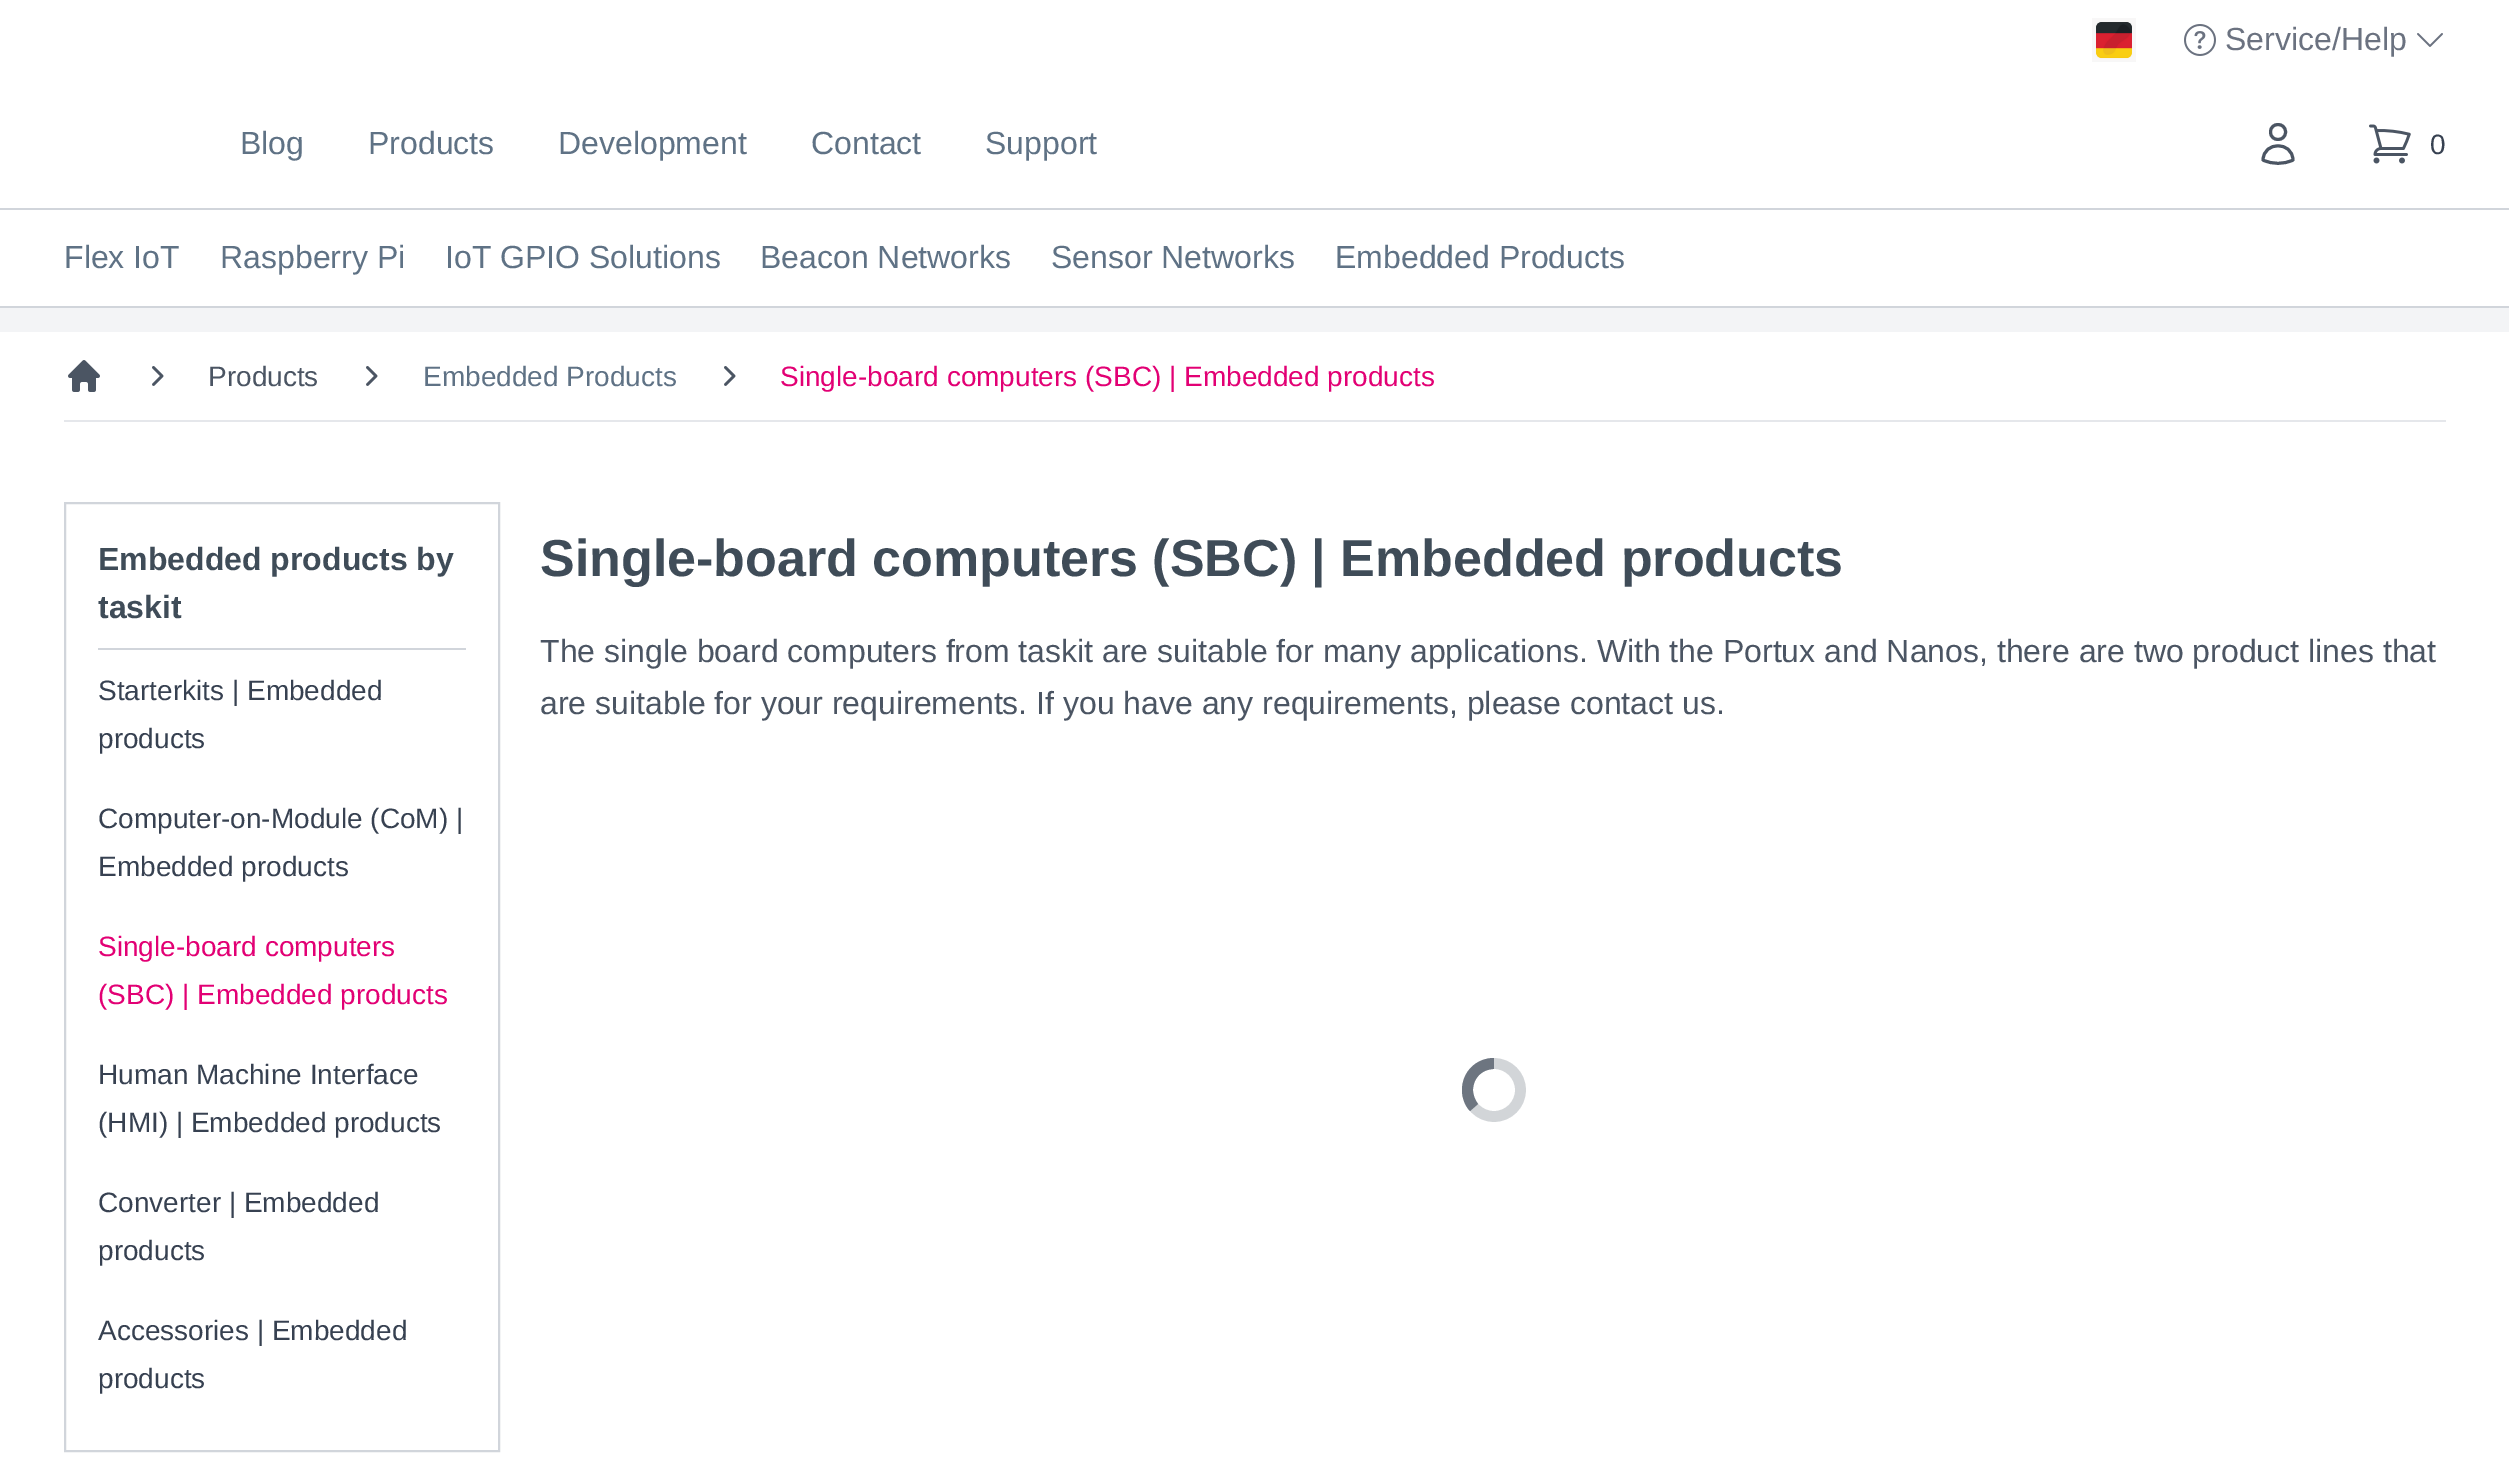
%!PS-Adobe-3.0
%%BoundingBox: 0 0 2509 1465
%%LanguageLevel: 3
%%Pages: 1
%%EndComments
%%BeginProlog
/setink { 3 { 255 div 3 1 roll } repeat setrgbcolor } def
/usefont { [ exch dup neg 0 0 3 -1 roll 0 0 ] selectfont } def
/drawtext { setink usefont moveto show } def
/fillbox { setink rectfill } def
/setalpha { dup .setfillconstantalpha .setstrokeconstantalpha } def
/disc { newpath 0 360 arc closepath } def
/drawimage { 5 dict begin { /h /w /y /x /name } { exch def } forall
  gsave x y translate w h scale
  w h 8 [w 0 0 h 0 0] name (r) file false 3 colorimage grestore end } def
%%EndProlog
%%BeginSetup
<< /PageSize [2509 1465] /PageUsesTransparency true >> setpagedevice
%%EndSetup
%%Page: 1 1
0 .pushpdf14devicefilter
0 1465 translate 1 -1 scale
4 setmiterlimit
0 0 2509 1465 243 244 246 fillbox
0 0 2509 208 255 255 255 fillbox
0 208 2509 2 209 213 219 fillbox
(assets/img1.rgb) 2092 18 44 44 drawimage
(assets/img2.rgb) 2184 24 32 32 drawimage
(Service/Help) 2225 50 /LiberationSans-Regular 32 107 114 128 drawtext
(assets/img3.rgb) 2417 33 26 14 drawimage
(Blog) 240 154 /LiberationSans-Regular 32 95 114 133 drawtext
(Products) 368 154 /LiberationSans-Regular 32 95 114 133 drawtext
(Development) 558 154 /LiberationSans-Regular 32 95 114 133 drawtext
(Contact) 811 154 /LiberationSans-Regular 32 95 114 133 drawtext
(Support) 985 154 /LiberationSans-Regular 32 95 114 133 drawtext
75 85 99 setink
3 setlinewidth
1 setlinecap
1 setlinejoin
2285.5 132 moveto 2285.5 142 2270.5 142 2270.5 132 curveto 2270.5 122 2285.5 122 2285.5 132 curveto closepath 2263 160 moveto 2263.5 141 2292.5 141 2293 160 curveto 2283.5 164.5 2272.5 164.5 2263 160 curveto closepath stroke
(assets/img4.rgb) 2369 124 42 40 drawimage
(0) 2430 154 /LiberationSans-Regular 28 55 65 81 drawtext
0 210 2509 96 255 255 255 fillbox
0 306 2509 2 209 213 219 fillbox
(Flex IoT) 64 268 /LiberationSans-Regular 32 95 114 133 drawtext
(Raspberry Pi) 220 268 /LiberationSans-Regular 32 95 114 133 drawtext
(IoT GPIO Solutions) 445 268 /LiberationSans-Regular 32 95 114 133 drawtext
(Beacon Networks) 760 268 /LiberationSans-Regular 32 95 114 133 drawtext
(Sensor Networks) 1051 268 /LiberationSans-Regular 32 95 114 133 drawtext
(Embedded Products) 1335 268 /LiberationSans-Regular 32 95 114 133 drawtext
0 332 2509 1133 255 255 255 fillbox
64 420 2382 2 229 231 235 fillbox
(assets/img5.rgb) 68 360 32 32 drawimage
(assets/img6.rgb) 152 366 12 20 drawimage
(Products) 208 386 /LiberationSans-Regular 28 75 85 99 drawtext
(assets/img6.rgb) 366 366 12 20 drawimage
(Embedded Products) 423 386 /LiberationSans-Regular 28 95 114 133 drawtext
(assets/img6.rgb) 724 366 12 20 drawimage
(Single-board computers \(SBC\) | Embedded products) 780 386 /LiberationSans-Regular 28 226 0 116 drawtext
209 213 219 setink
2 setlinewidth
0 setlinecap
0 setlinejoin
65 503 434 948 rectstroke
98 648 368 2 209 213 219 fillbox
(Embedded products by) 98 570 /LiberationSans-Bold 32 63 76 88 drawtext
(taskit) 98 618 /LiberationSans-Bold 32 63 76 88 drawtext
(Starterkits | Embedded) 98 700 /LiberationSans-Regular 28 55 65 81 drawtext
(products) 98 748 /LiberationSans-Regular 28 55 65 81 drawtext
(Computer-on-Module \(CoM\) |) 98 828 /LiberationSans-Regular 28 55 65 81 drawtext
(Embedded products) 98 876 /LiberationSans-Regular 28 55 65 81 drawtext
(Single-board computers) 98 956 /LiberationSans-Regular 28 226 0 116 drawtext
(\(SBC\) | Embedded products) 98 1004 /LiberationSans-Regular 28 226 0 116 drawtext
(Human Machine Interface) 98 1084 /LiberationSans-Regular 28 55 65 81 drawtext
(\(HMI\) | Embedded products) 98 1132 /LiberationSans-Regular 28 55 65 81 drawtext
(Converter | Embedded) 98 1212 /LiberationSans-Regular 28 55 65 81 drawtext
(products) 98 1260 /LiberationSans-Regular 28 55 65 81 drawtext
(Accessories | Embedded) 98 1340 /LiberationSans-Regular 28 55 65 81 drawtext
(products) 98 1388 /LiberationSans-Regular 28 55 65 81 drawtext
(Single-board computers \(SBC\) | Embedded products) 540 576 /LiberationSans-Bold 52 63 76 88 drawtext
(The single board computers from taskit are suitable for many applications. With the Portux and Nanos, there are two product lines that) 540 662 /LiberationSans-Regular 32 75 85 99 drawtext
(are suitable for your requirements. If you have any requirements, please contact us.) 540 714 /LiberationSans-Regular 32 75 85 99 drawtext
210 213 216 setink
10.7 setlinewidth
1494 1090 26.5 disc stroke
0.75 setalpha
75 85 99 setink
1473 1090 moveto 1473 1078 1482 1069 1494 1069 curveto 1494 1058 lineto 1476 1058 1462 1072 1462 1090 curveto closepath 1478 1104 moveto 1475 1100 1473 1095 1473 1090 curveto 1462 1090 lineto 1462 1098 1465 1106 1470 1111 curveto closepath fill
.poppdf14devicefilter showpage
%%EOF
